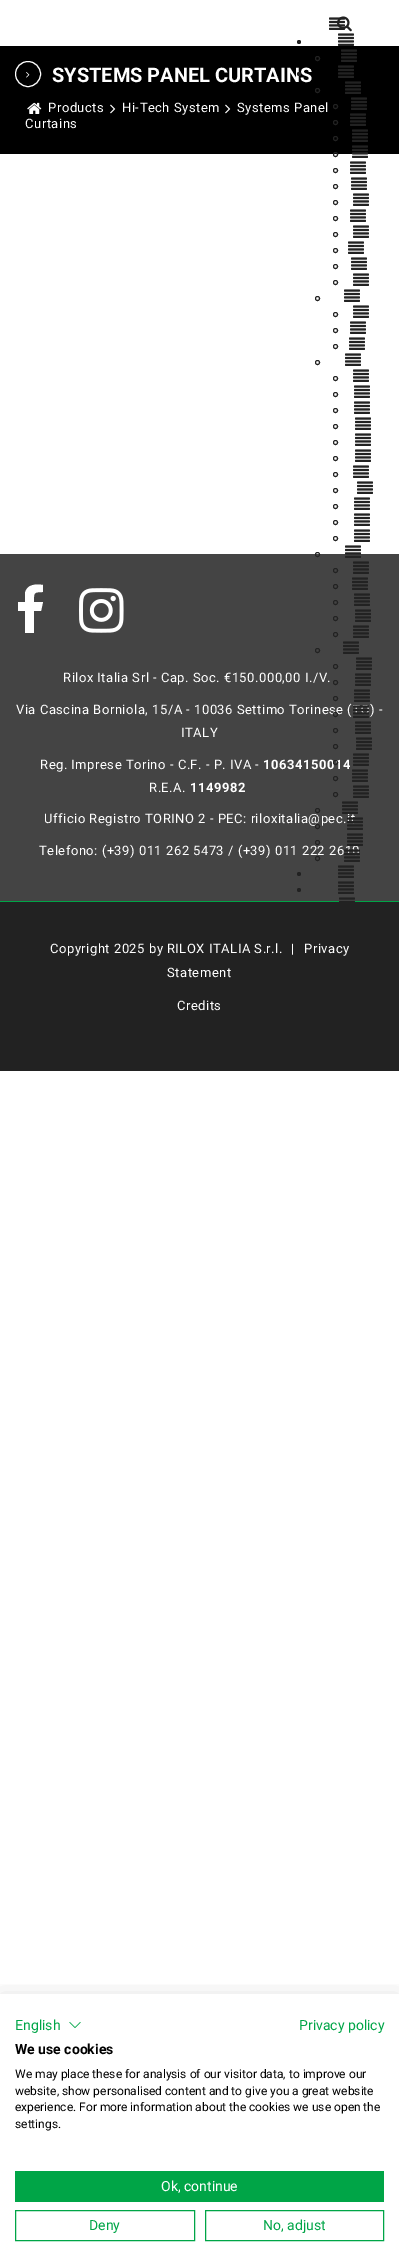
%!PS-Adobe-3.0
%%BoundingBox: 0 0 399 2268
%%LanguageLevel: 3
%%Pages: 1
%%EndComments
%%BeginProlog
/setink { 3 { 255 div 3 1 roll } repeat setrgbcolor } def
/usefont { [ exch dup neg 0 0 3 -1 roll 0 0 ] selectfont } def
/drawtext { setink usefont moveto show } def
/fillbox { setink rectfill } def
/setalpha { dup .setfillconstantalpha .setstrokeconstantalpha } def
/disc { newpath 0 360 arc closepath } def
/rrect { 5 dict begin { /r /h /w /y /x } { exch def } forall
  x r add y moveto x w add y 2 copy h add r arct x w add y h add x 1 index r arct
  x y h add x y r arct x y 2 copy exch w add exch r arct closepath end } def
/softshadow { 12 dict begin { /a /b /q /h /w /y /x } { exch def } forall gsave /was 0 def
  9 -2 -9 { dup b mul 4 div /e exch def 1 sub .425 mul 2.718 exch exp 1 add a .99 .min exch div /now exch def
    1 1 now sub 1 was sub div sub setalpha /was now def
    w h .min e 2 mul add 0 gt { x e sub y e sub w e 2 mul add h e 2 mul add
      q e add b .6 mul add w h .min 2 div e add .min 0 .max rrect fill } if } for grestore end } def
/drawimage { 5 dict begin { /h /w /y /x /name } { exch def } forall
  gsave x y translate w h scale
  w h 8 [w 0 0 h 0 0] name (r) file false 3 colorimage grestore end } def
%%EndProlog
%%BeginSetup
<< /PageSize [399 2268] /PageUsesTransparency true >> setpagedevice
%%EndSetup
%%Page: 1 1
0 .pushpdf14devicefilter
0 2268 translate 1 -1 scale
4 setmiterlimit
0 0 399 2268 255 255 255 fillbox
0 46 399 108 0 0 0 fillbox
255 255 255 setink
28 74 12.5 disc stroke
(assets/img1.rgb) 26 72 4 6 drawimage
(SYSTEMS PANEL CURTAINS) 52 82 /Roboto-Bold 20 255 255 255 drawtext
/Roboto-Regular 13 usefont
48 112 moveto 0.5 0 (Products) ashow
(assets/img2.rgb) 110 104 6 10 drawimage
122 112 moveto 0.5 0 (Hi-Tech System) ashow
(assets/img2.rgb) 225 104 6 10 drawimage
237 112 moveto 0.5 0 (Systems Panel) ashow
25 128 moveto 0.5 0 (Curtains) ashow
(assets/img3.rgb) 27 102 15 12 drawimage
(assets/img4.rgb) 337 16 15 16 drawimage
(assets/img5.rgb) 329 17 16 13 drawimage
34 34 34 setink
299 42 2 disc fill
(assets/img6.rgb) 338 33 16 13 drawimage
317.5 58.5 2 disc stroke
(assets/img7.rgb) 341 49 16 13 drawimage
299 74 2 disc fill
(assets/img7.rgb) 338 65 16 13 drawimage
317.5 90.5 2 disc stroke
(assets/img7.rgb) 345 81 16 13 drawimage
335.5 106.5 2 disc stroke
(assets/img7.rgb) 351 97 16 13 drawimage
335.5 122.5 2 disc stroke
(assets/img7.rgb) 350 113 16 13 drawimage
335.5 138.5 2 disc stroke
(assets/img7.rgb) 352 129 16 13 drawimage
335.5 154.5 2 disc stroke
(assets/img8.rgb) 352 145 16 13 drawimage
335.5 170.5 2 disc stroke
(assets/img6.rgb) 350 161 16 13 drawimage
335.5 186.5 2 disc stroke
(assets/img6.rgb) 351 177 16 13 drawimage
335.5 202.5 2 disc stroke
(assets/img6.rgb) 353 193 16 13 drawimage
335.5 218.5 2 disc stroke
(assets/img6.rgb) 350 209 16 13 drawimage
335.5 234.5 2 disc stroke
(assets/img6.rgb) 353 225 16 13 drawimage
335.5 250.5 2 disc stroke
(assets/img6.rgb) 348 241 16 13 drawimage
335.5 266.5 2 disc stroke
(assets/img6.rgb) 351 257 16 13 drawimage
335.5 282.5 2 disc stroke
(assets/img6.rgb) 353 273 16 13 drawimage
317.5 298.5 2 disc stroke
(assets/img6.rgb) 344 289 16 13 drawimage
335.5 314.5 2 disc stroke
(assets/img6.rgb) 353 305 16 13 drawimage
335.5 330.5 2 disc stroke
(assets/img6.rgb) 350 321 16 13 drawimage
335.5 346.5 2 disc stroke
(assets/img6.rgb) 349 337 16 13 drawimage
317.5 362.5 2 disc stroke
(assets/img6.rgb) 345 353 16 13 drawimage
335.5 378.5 2 disc stroke
(assets/img6.rgb) 353 369 16 13 drawimage
335.5 394.5 2 disc stroke
(assets/img6.rgb) 354 385 16 13 drawimage
335.5 410.5 2 disc stroke
(assets/img6.rgb) 354 401 16 13 drawimage
335.5 426.5 2 disc stroke
(assets/img6.rgb) 355 417 16 13 drawimage
335.5 442.5 2 disc stroke
(assets/img6.rgb) 355 433 16 13 drawimage
335.5 458.5 2 disc stroke
(assets/img6.rgb) 355 449 16 13 drawimage
335.5 474.5 2 disc stroke
(assets/img6.rgb) 353 465 16 13 drawimage
335.5 490.5 2 disc stroke
(assets/img6.rgb) 357 481 16 13 drawimage
335.5 506.5 2 disc stroke
(assets/img6.rgb) 354 497 16 13 drawimage
335.5 522.5 2 disc stroke
(assets/img6.rgb) 354 513 16 13 drawimage
335.5 538.5 2 disc stroke
(assets/img6.rgb) 354 529 16 13 drawimage
0 554 399 347 68 68 68 fillbox
34 34 34 setink
317.5 554.5 2 disc stroke
(assets/img9.rgb) 345 545 16 13 drawimage
335.5 570.5 2 disc stroke
(assets/img10.rgb) 353 561 16 13 drawimage
335.5 586.5 2 disc stroke
(assets/img10.rgb) 352 577 16 13 drawimage
335.5 602.5 2 disc stroke
(assets/img10.rgb) 354 593 16 13 drawimage
335.5 618.5 2 disc stroke
(assets/img10.rgb) 355 609 16 13 drawimage
335.5 634.5 2 disc stroke
(assets/img10.rgb) 353 625 16 13 drawimage
317.5 650.5 2 disc stroke
(assets/img10.rgb) 343 641 16 13 drawimage
335.5 666.5 2 disc stroke
(assets/img10.rgb) 356 657 16 13 drawimage
335.5 682.5 2 disc stroke
(assets/img10.rgb) 355 673 16 13 drawimage
335.5 698.5 2 disc stroke
(assets/img10.rgb) 354 689 16 13 drawimage
255 255 255 setink
16 714 moveto 0.5 0 (Via Cascina Borniola, 15/A - 10036 Settimo Torinese \() ashow
34 34 34 setink
335.5 714.5 2 disc stroke
(assets/img11.rgb) 353 705 16 13 drawimage
335.5 730.5 2 disc stroke
(assets/img10.rgb) 355 721 16 13 drawimage
335.5 746.5 2 disc stroke
(assets/img10.rgb) 356 737 16 13 drawimage
/Roboto-Bold 13 usefont
255 255 255 setink
263 769 moveto 0.5 0 (10634150014) ashow
34 34 34 setink
335.5 762.5 2 disc stroke
(assets/img10.rgb) 353 753 16 13 drawimage
335.5 778.5 2 disc stroke
(assets/img10.rgb) 352 769 16 13 drawimage
335.5 794.5 2 disc stroke
(assets/img10.rgb) 353 785 16 13 drawimage
317.5 810.5 2 disc stroke
/Roboto-Regular 13 usefont
255 255 255 setink
44 823 moveto 0.5 0 (Ufficio Registro TORINO 2 - PEC: riloxitalia@pec.it) ashow
(assets/img10.rgb) 342 801 16 13 drawimage
34 34 34 setink
317.5 826.5 2 disc stroke
(assets/img12.rgb) 347 817 16 13 drawimage
255 255 255 setink
39 855 moveto 0.5 0 (Telefono: \(+39\) 011 262 5473 / \(+39\) 011 222 2610) ashow
34 34 34 setink
317.5 842.5 2 disc stroke
(assets/img10.rgb) 347 833 16 13 drawimage
317.5 858.5 2 disc stroke
(assets/img13.rgb) 344 849 16 13 drawimage
299 874 2 disc fill
(assets/img10.rgb) 338 865 16 13 drawimage
299 890 2 disc fill
(assets/img10.rgb) 338 881 16 13 drawimage
0 901 399 1 0 165 71 fillbox
(assets/img14.rgb) 339 897 16 5 drawimage
255 255 255 setink
43 585 moveto 43 592 lineto 33 592 34 593 34 602 curveto 43 602 lineto 41 611 lineto 34 611 lineto 34 633 lineto 25 633 lineto 25 611 lineto 18 611 lineto 18 602 lineto 25 602 lineto 25 593 lineto 27 584 36 584 43 585 curveto closepath fill
(assets/img15.rgb) 79 588 45 45 drawimage
63 682 moveto 0.5 0 (Rilox Italia Srl - Cap. Soc. €150.000,00 I./V.) ashow
370 714 moveto 0.5 0 (\) -) ashow
181 737 moveto 0.5 0 (ITALY) ashow
40 769 moveto 0.5 0 (Reg. Imprese Torino - C.F. - P. IVA -) ashow
149 792 moveto 0.5 0 (R.E.A.) ashow
/Roboto-Bold 13 usefont
190 792 moveto 0.5 0 (1149982) ashow
0 902 399 169 34 34 34 fillbox
/Roboto-Regular 13 usefont
255 255 255 setink
50 953 moveto 0.5 0 (Copyright 2025 by RILOX ITALIA S.r.l.) ashow
291 953 moveto 0.5 0 (|) ashow
304 953 moveto 0.5 0 (Privacy) ashow
167 977 moveto 0.5 0 (Statement) ashow
177 1010 moveto 0.5 0 (Credits) ashow
gsave
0 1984 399 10 rectclip
0 0 0 setink
0 1994 399 274 0 12 0.1 softshadow
grestore
(English) 15 2030 /Roboto-Regular 14 0 165 71 drawtext
(assets/img16.rgb) 69 2022 12 6 drawimage
(Privacy policy) 299 2030 /Roboto-Regular 14 0 165 71 drawtext
(We use cookies) 15 2054 /Roboto-Bold 14 0 0 0 drawtext
(We may place these for analysis of our visitor data, to improve our) 15 2078 /Roboto-Regular 12 0 0 0 drawtext
(website, show personalised content and to give you a great website) 15 2095 /Roboto-Regular 12 0 0 0 drawtext
(experience. For more information about the cookies we use open the) 15 2111 /Roboto-Regular 12 0 0 0 drawtext
(settings.) 15 2128 /Roboto-Regular 12 0 0 0 drawtext
15 2171 369 31 0 165 71 fillbox
(Ok, continue) 161 2191 /Roboto-Regular 14 255 255 255 drawtext
0 165 71 setink
15.5 2210.5 179 30 rectstroke
(Deny) 89 2230 /Roboto-Regular 14 0 165 71 drawtext
205.5 2210.5 178 30 rectstroke
(No, adjust) 263 2230 /Roboto-Regular 14 0 165 71 drawtext
.poppdf14devicefilter showpage
%%EOF
